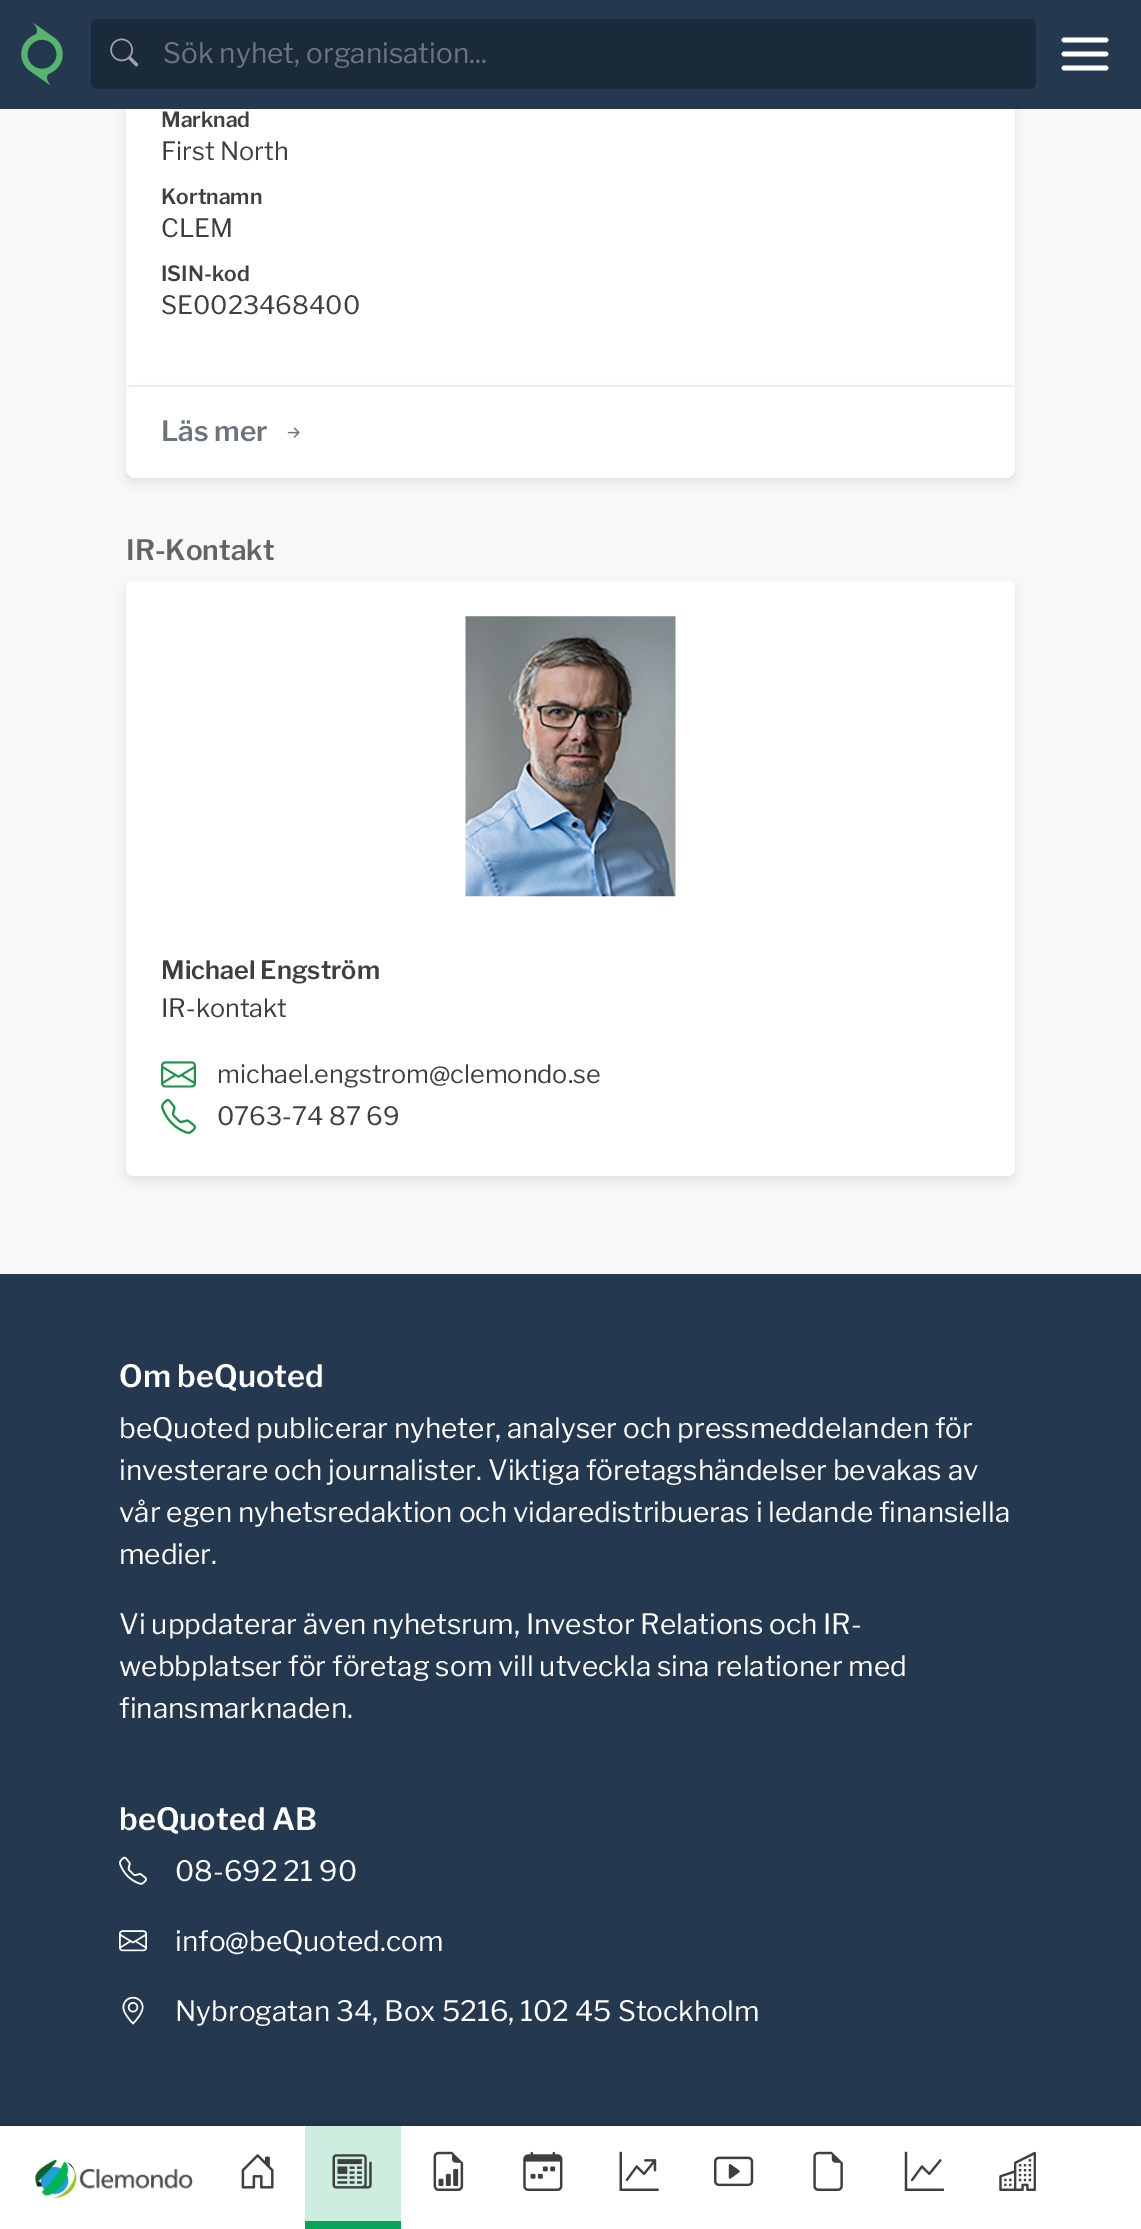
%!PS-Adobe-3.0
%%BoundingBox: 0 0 1141 2229
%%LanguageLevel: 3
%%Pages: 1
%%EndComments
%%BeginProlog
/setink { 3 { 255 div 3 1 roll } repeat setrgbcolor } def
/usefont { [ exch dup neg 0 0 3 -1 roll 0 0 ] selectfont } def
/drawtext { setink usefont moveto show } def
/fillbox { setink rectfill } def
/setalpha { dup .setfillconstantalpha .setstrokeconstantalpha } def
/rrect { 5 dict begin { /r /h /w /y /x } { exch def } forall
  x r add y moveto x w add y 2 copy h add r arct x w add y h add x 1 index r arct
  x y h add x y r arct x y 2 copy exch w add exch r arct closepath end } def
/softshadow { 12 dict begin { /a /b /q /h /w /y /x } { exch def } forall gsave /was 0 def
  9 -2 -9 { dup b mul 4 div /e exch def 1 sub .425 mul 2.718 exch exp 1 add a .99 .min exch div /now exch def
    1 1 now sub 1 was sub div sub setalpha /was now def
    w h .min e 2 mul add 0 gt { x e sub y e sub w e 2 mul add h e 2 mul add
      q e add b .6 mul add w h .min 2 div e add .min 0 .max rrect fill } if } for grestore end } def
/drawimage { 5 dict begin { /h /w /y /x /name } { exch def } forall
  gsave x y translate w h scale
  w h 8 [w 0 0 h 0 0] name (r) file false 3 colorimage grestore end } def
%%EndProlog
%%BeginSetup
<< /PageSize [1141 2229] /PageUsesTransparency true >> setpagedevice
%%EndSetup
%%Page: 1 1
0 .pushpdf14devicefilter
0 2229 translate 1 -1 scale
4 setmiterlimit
0 0 1141 2229 248 248 249 fillbox
0 0 0 setink
126 -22 889 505 7 5 0.08 softshadow
255 255 255 setink
126 -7 889 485 7 rrect fill
0 0 1141 109 36 56 79 fillbox
(assets/img1.rgb) 21 23 42 63 drawimage
27 42 59 setink
91 19 945 70 7 rrect fill
(assets/img2.rgb) 110 38 29 29 drawimage
(Sök nyhet, organisation...) 163 63 /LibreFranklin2-Thin 28 108 117 125 drawtext
255 255 255 setink
4.7 setlinewidth
1 setlinecap
1 setlinejoin
1064 54 moveto 1106 54 lineto 1064 40 moveto 1106 40 lineto 1064 68 moveto 1106 68 lineto stroke
(Marknad) 161 127 /LibreFranklin-Thin 21 62 63 66 drawtext
(First North) 161 160 /LibreFranklin2-Thin 25.25 62 63 66 drawtext
(Kortnamn) 161 204 /LibreFranklin-Thin 21 62 63 66 drawtext
(CLEM) 161 237 /LibreFranklin2-Thin 25.25 62 63 66 drawtext
(ISIN-kod) 161 281 /LibreFranklin-Thin 21 62 63 66 drawtext
(SE0023468400) 161 314 /LibreFranklin2-Thin 25.25 62 63 66 drawtext
126 385 889 2 242 242 242 fillbox
gsave
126 -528 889 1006 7 rrect clip newpath
0 0 0 setink
126 390 889 91 9 3.5 0.16 softshadow
grestore
255 255 255 setink
126 387 889 91 9 rrect fill
(Läs mer) 161 441 /LibreFranklin-Thin 28 108 117 125 drawtext
(assets/img3.rgb) 287 427 13 11 drawimage
(IR-Kontakt) 126 560 /LibreFranklin-Thin 28 100 100 100 drawtext
0 0 0 setink
126 586 889 595 7 5 0.08 softshadow
255 255 255 setink
126 581 889 595 7 rrect fill
(assets/img4.rgb) 465 616 211 281 drawimage
(Michael Engström) 161 979 /LibreFranklin-Thin 25.25 62 63 66 drawtext
(IR-kontakt) 161 1017 /LibreFranklin2-Thin 25.25 62 63 66 drawtext
(assets/img5.rgb) 161 1061 35 27 drawimage
(michael.engstrom@clemondo.se) 217 1083 /LibreFranklin2-Thin 25.25 62 63 66 drawtext
(assets/img6.rgb) 161 1099 35 35 drawimage
(0763-74 87 69) 217 1125 /LibreFranklin2-Thin 25.25 62 63 66 drawtext
0 1274 1141 852 36 56 79 fillbox
0 0 0 setink
0 2123 1141 103 0 3.5 0.16 softshadow
0 2126 1141 103 255 255 255 fillbox
(assets/img7.rgb) 35 2159 158 40 drawimage
(assets/img8.rgb) 241 2154 33 35 drawimage
305 2126 96 95 205 237 222 fillbox
305 2221 96 8 6 163 89 fillbox
(assets/img9.rgb) 332 2154 40 35 drawimage
(assets/img10.rgb) 433 2151 31 40 drawimage
(assets/img11.rgb) 523 2151 40 40 drawimage
(assets/img12.rgb) 619 2151 40 40 drawimage
(assets/img13.rgb) 714 2156 40 31 drawimage
(assets/img14.rgb) 813 2151 30 40 drawimage
(assets/img15.rgb) 904 2151 40 40 drawimage
(assets/img16.rgb) 999 2151 37 40 drawimage
(Om beQuoted) 119 1387 /LibreFranklin-Thin 30.75 255 255 255 drawtext
(beQuoted publicerar nyheter, analyser och pressmeddelanden för) 119 1438 /LibreFranklin2-Thin 28 255 255 255 drawtext
(investerare och journalister. Viktiga företagshändelser bevakas av) 119 1480 /LibreFranklin2-Thin 28 255 255 255 drawtext
(vår egen nyhetsredaktion och vidaredistribueras i ledande finansiella) 119 1522 /LibreFranklin2-Thin 28 255 255 255 drawtext
(medier.) 119 1564 /LibreFranklin2-Thin 28 255 255 255 drawtext
(Vi uppdaterar även nyhetsrum, Investor Relations och IR-) 119 1634 /LibreFranklin2-Thin 28 255 255 255 drawtext
(webbplatser för företag som vill utveckla sina relationer med) 119 1676 /LibreFranklin2-Thin 28 255 255 255 drawtext
(finansmarknaden.) 119 1718 /LibreFranklin2-Thin 28 255 255 255 drawtext
(beQuoted AB) 119 1830 /LibreFranklin-Thin 30.75 255 255 255 drawtext
(assets/img17.rgb) 119 1856 28 29 drawimage
(08-692 21 90) 175 1881 /LibreFranklin2-Thin 28 255 255 255 drawtext
(assets/img18.rgb) 119 1930 28 22 drawimage
(info@beQuoted.com) 175 1951 /LibreFranklin2-Thin 28 255 255 255 drawtext
(assets/img19.rgb) 122 1996 22 29 drawimage
(Nybrogatan 34, Box 5216, 102 45 Stockholm) 175 2021 /LibreFranklin2-Thin 28 255 255 255 drawtext
.poppdf14devicefilter showpage
%%EOF
